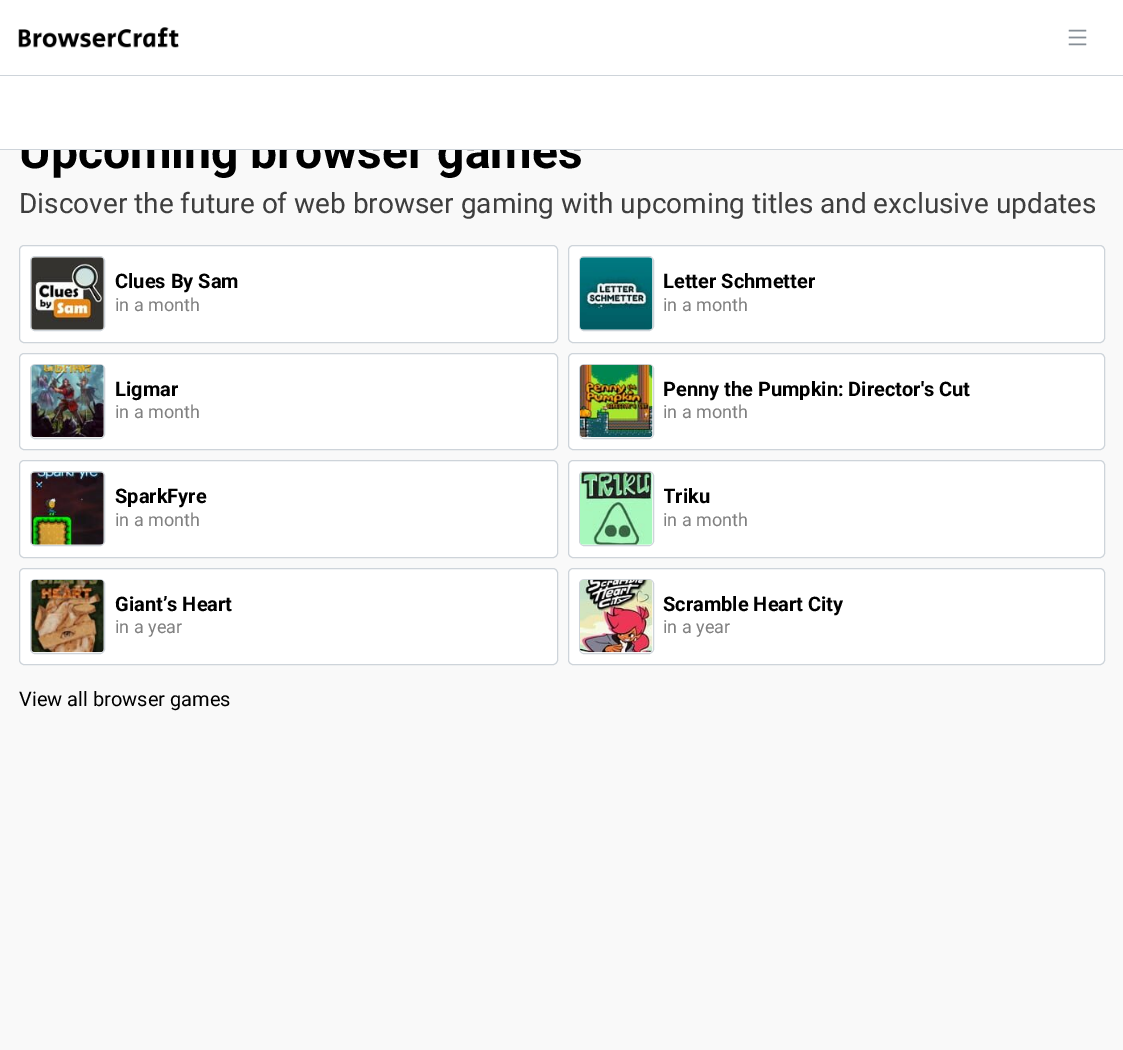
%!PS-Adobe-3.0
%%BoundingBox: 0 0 1123 1050
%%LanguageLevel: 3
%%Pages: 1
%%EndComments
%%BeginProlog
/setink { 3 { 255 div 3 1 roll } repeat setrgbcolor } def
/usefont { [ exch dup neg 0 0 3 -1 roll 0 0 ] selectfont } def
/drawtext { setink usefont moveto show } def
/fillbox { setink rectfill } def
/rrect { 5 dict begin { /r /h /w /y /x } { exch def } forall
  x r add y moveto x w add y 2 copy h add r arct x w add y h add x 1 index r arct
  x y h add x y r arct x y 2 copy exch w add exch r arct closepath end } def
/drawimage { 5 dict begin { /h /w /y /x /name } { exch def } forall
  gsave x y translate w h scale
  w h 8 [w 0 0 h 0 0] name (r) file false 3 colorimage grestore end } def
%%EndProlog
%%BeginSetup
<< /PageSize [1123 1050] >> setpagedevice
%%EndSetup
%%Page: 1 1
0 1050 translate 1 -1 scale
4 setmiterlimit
0 0 1123 1050 249 249 249 fillbox
0 0 1123 75 255 255 255 fillbox
0 75 1123 1 206 212 218 fillbox
(assets/img1.rgb) 18 27 161 21 drawimage
(assets/img2.rgb) 1068 29 19 17 drawimage
(Upcoming browser games) 19 168 /Roboto-Bold 48 0 0 0 drawtext
0 76 1123 73 255 255 255 fillbox
0 149 1123 1 206 212 218 fillbox
(Discover the future of web browser gaming with upcoming titles and exclusive updates) 19 213 /Roboto-Regular 28 62 62 62 drawtext
255 255 255 setink
19.5 245.5 538 97 4.5 rrect gsave fill grestore
206 212 218 setink
stroke
30.5 256.5 74 74 4.5 rrect stroke
(assets/img3.rgb) 31 257 73 73 drawimage
(Clues By Sam) 115 288 /Roboto-Bold 20 0 0 0 drawtext
(in a month) 115 311 /Roboto-Regular 18 128 128 128 drawtext
255 255 255 setink
568.5 245.5 536 97 4.5 rrect gsave fill grestore
206 212 218 setink
stroke
579.5 256.5 74 74 4.5 rrect stroke
(assets/img4.rgb) 580 257 73 73 drawimage
(Letter Schmetter) 663 288 /Roboto-Bold 20 0 0 0 drawtext
(in a month) 663 311 /Roboto-Regular 18 128 128 128 drawtext
255 255 255 setink
19.5 353.5 538 96 4.5 rrect gsave fill grestore
206 212 218 setink
stroke
30.5 364.5 74 74 4.5 rrect stroke
(assets/img5.rgb) 31 364 73 74 drawimage
(Ligmar) 115 396 /Roboto-Bold 20 0 0 0 drawtext
(in a month) 115 418 /Roboto-Regular 18 128 128 128 drawtext
255 255 255 setink
568.5 353.5 536 96 4.5 rrect gsave fill grestore
206 212 218 setink
stroke
579.5 364.5 74 74 4.5 rrect stroke
(assets/img6.rgb) 580 364 73 74 drawimage
(Penny the Pumpkin: Director's Cut) 663 396 /Roboto-Bold 20 0 0 0 drawtext
(in a month) 663 418 /Roboto-Regular 18 128 128 128 drawtext
255 255 255 setink
19.5 460.5 538 97 4.5 rrect gsave fill grestore
206 212 218 setink
stroke
30.5 471.5 74 74 4.5 rrect stroke
(assets/img7.rgb) 31 472 73 73 drawimage
(SparkFyre) 115 503 /Roboto-Bold 20 0 0 0 drawtext
(in a month) 115 526 /Roboto-Regular 18 128 128 128 drawtext
255 255 255 setink
568.5 460.5 536 97 4.5 rrect gsave fill grestore
206 212 218 setink
stroke
579.5 471.5 74 74 4.5 rrect stroke
(assets/img8.rgb) 580 472 73 73 drawimage
gsave
664 485 430 25 rectclip
(Triku) 663 503 /Roboto-Bold 20 0 0 0 drawtext
grestore
(in a month) 663 526 /Roboto-Regular 18 128 128 128 drawtext
255 255 255 setink
19.5 568.5 538 96 4.5 rrect gsave fill grestore
206 212 218 setink
stroke
30.5 579.5 74 74 4.5 rrect stroke
(assets/img9.rgb) 31 579 73 74 drawimage
(Giant’s Heart) 115 611 /Roboto-Bold 20 0 0 0 drawtext
(in a year) 115 633 /Roboto-Regular 18 128 128 128 drawtext
255 255 255 setink
568.5 568.5 536 96 4.5 rrect gsave fill grestore
206 212 218 setink
stroke
579.5 579.5 74 74 4.5 rrect stroke
(assets/img10.rgb) 580 579 73 74 drawimage
(Scramble Heart City) 663 611 /Roboto-Bold 20 0 0 0 drawtext
(in a year) 663 633 /Roboto-Regular 18 128 128 128 drawtext
(View all browser games) 19 706 /Roboto-Regular 20 0 0 0 drawtext
showpage
%%EOF
